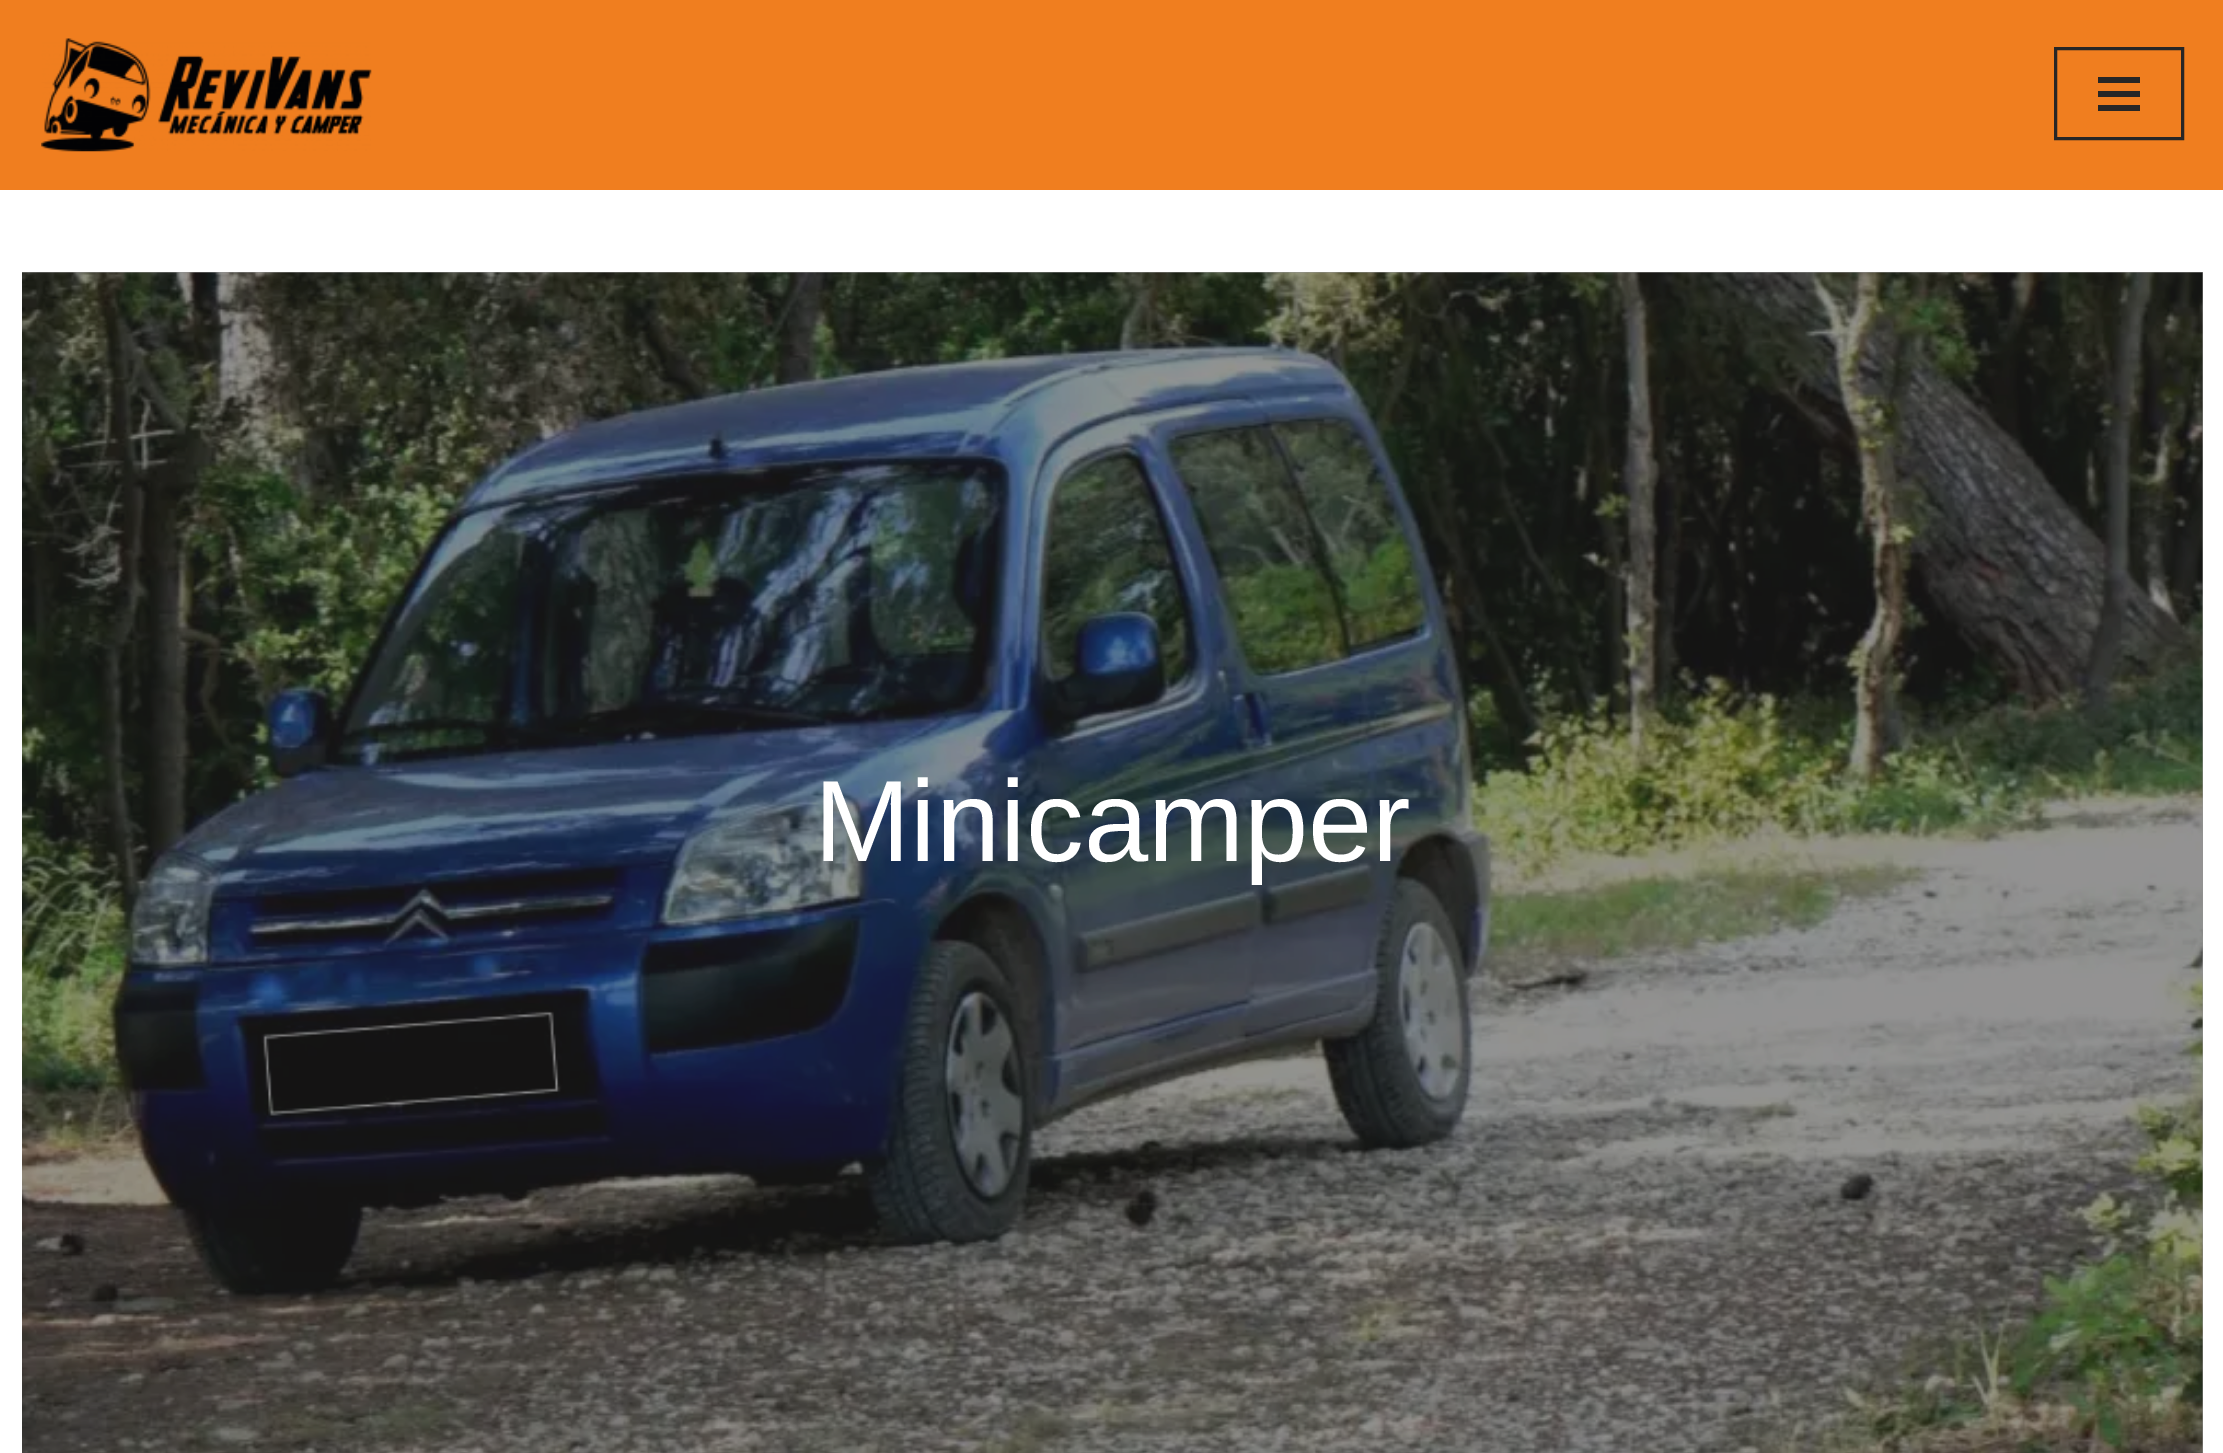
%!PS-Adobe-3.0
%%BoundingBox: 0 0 2223 1453
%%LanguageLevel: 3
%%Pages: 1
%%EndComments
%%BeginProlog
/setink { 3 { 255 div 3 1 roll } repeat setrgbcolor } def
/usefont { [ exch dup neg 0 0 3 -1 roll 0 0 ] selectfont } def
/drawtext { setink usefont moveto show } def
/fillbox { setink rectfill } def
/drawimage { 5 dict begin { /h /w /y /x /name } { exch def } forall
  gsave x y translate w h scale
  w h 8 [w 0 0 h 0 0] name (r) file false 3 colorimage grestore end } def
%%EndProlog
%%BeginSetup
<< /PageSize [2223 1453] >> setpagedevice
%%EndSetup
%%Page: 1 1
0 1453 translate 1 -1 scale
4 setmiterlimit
0 0 2223 1453 255 255 255 fillbox
22 272 2181 1181 147 147 147 fillbox
0 0 2223 190 240 126 31 fillbox
(assets/img1.rgb) 41 38 331 114 drawimage
39 38 38 setink
3 setlinewidth
2055.5 48.5 127 90 rectstroke
2098 77 42 6 39 38 38 fillbox
2098 91 42 6 39 38 38 fillbox
2098 105 42 6 39 38 38 fillbox
(assets/img2.rgb) 22 272 2181 1181 drawimage
(Minicamper) 814 861 /LiberationSans-Regular 115.5 255 255 255 drawtext
showpage
%%EOF
